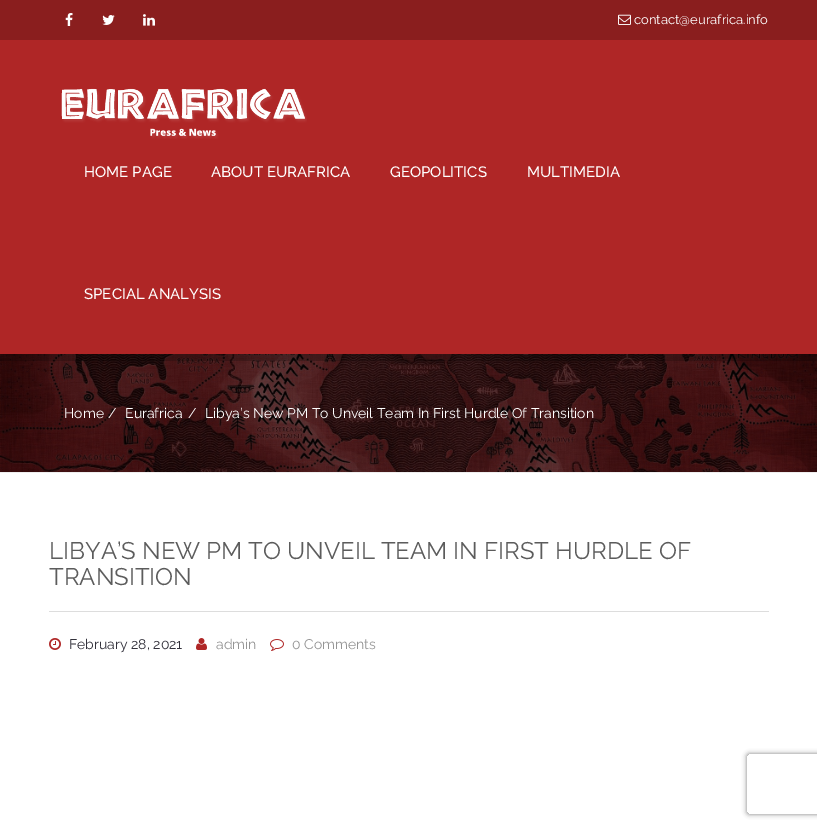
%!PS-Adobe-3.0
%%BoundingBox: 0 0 817 828
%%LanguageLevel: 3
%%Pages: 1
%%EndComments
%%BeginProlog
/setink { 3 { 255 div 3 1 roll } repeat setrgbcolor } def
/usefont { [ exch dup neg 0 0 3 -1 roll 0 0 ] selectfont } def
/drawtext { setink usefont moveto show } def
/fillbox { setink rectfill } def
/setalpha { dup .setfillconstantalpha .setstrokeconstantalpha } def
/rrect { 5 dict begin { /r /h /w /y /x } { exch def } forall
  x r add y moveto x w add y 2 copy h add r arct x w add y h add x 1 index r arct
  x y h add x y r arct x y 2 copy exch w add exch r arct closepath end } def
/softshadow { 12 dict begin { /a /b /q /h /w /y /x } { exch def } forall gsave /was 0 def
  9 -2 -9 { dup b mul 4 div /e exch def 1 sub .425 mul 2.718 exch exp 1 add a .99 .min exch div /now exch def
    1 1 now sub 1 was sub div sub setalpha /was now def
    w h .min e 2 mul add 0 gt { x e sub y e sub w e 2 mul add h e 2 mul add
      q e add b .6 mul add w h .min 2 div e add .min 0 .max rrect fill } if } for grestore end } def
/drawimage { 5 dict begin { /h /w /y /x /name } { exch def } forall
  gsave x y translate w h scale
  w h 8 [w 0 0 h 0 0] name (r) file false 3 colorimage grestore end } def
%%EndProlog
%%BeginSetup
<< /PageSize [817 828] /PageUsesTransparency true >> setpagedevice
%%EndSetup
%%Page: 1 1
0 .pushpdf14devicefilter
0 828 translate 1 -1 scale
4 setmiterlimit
0 0 817 828 255 255 255 fillbox
0 0 817 40 138 30 30 fillbox
(assets/img1.rgb) 65 13 8 13 drawimage
(assets/img2.rgb) 102 15 13 10 drawimage
(assets/img3.rgb) 143 14 12 12 drawimage
(assets/img4.rgb) 618 14 13 11 drawimage
(contact@eurafrica.info) 634 24 /Raleway-Regular 13 255 255 255 drawtext
(assets/img6.rgb) 0 354 817 118 drawimage
0.2 setalpha
0 354 817 7 0 0 0 fillbox
1 setalpha
0 40 817 314 175 38 38 fillbox
(assets/img5.rgb) 61 88 246 51 drawimage
(HOME PAGE) 84 177 /Raleway-Medium 15 255 255 255 drawtext
(ABOUT EURAFRICA) 211 177 /Raleway-Medium 15 255 255 255 drawtext
(GEOPOLITICS) 390 177 /Raleway-Medium 15 255 255 255 drawtext
(MULTIMEDIA) 527 177 /Raleway-Medium 15 255 255 255 drawtext
(SPECIAL ANALYSIS) 84 299 /Raleway-Medium 15 255 255 255 drawtext
0 472 817 1 238 238 238 fillbox
(Home) 64 418 /Raleway-Regular 14 255 255 255 drawtext
(/) 108 418 /Raleway-Regular 14 255 255 255 drawtext
(Eurafrica) 125 418 /Raleway-Regular 14 255 255 255 drawtext
(/) 188 418 /Raleway-Regular 14 255 255 255 drawtext
(Libya’s New PM To Unveil Team In First Hurdle Of Transition) 205 418 /Raleway-Regular 14 255 255 255 drawtext
49 611 720 1 221 221 221 fillbox
(LIBYA’S NEW PM TO UNVEIL TEAM IN FIRST HURDLE OF) 49 559 /Raleway-Regular 24 92 92 92 drawtext
(TRANSITION) 49 585 /Raleway-Regular 24 92 92 92 drawtext
(assets/img7.rgb) 49 638 12 12 drawimage
(February 28, 2021) 69 649 /Raleway-Regular 14 50 49 59 drawtext
(assets/img8.rgb) 196 638 11 12 drawimage
(admin) 216 649 /Raleway-Regular 14 149 149 149 drawtext
(assets/img9.rgb) 270 639 14 12 drawimage
(0 Comments) 292 649 /Raleway-Regular 14 149 149 149 drawtext
gsave
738 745 moveto 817 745 lineto 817 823 lineto 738 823 lineto closepath 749 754 moveto 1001 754 lineto 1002 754 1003 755 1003 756 curveto 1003 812 lineto 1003 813 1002 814 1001 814 curveto 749 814 lineto 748 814 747 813 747 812 curveto 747 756 lineto 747 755 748 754 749 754 curveto closepath eoclip newpath
128 128 128 setink
747 754 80 60 2 2.5 1 softshadow
grestore
.poppdf14devicefilter showpage
%%EOF
